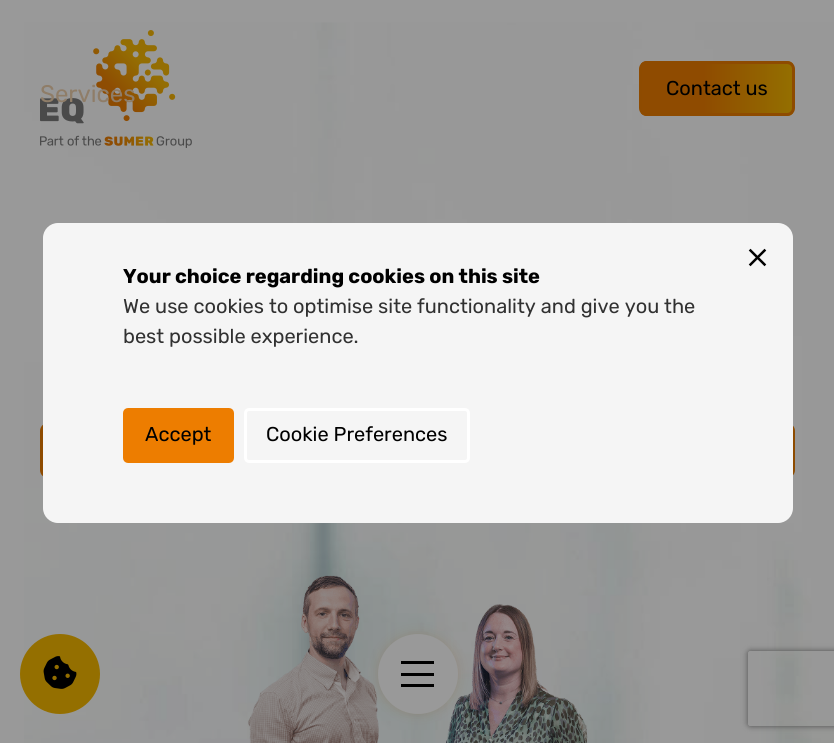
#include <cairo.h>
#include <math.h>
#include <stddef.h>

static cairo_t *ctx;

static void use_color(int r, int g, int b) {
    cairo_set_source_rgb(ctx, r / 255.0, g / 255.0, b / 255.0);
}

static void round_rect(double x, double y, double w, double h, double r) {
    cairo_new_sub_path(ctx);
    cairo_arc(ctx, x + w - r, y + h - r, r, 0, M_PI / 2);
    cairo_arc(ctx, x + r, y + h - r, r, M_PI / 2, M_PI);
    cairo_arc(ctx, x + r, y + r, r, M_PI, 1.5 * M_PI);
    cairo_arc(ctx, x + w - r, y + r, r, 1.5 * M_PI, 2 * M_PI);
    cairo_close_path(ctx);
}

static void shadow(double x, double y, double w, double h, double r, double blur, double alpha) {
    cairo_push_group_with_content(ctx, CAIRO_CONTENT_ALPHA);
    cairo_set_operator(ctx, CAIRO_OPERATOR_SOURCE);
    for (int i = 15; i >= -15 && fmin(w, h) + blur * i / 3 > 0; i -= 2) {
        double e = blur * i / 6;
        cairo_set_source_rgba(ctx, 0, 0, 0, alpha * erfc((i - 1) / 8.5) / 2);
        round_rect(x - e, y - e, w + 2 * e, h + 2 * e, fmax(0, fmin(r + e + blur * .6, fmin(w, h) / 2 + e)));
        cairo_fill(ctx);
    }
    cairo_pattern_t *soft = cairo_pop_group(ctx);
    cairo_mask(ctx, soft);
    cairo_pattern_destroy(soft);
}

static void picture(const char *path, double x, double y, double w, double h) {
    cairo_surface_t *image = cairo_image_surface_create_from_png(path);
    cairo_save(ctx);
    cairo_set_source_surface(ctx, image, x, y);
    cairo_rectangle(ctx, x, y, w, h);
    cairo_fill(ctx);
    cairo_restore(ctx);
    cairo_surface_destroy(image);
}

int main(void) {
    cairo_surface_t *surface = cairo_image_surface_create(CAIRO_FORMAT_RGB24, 834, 743);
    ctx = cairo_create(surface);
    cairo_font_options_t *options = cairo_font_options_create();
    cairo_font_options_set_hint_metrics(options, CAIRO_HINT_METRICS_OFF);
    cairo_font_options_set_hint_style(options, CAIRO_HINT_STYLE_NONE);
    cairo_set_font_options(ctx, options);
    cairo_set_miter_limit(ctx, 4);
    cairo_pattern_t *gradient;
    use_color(153, 153, 153);
    cairo_paint(ctx);
    picture("img1.png", 24, 22, 810, 721);
    round_rect(41.5, 424.5, 752, 52, 6.5);
    use_color(142, 75, 0);
    cairo_set_line_width(ctx, 3);
    cairo_stroke(ctx);
    picture("img2.png", 248, 575, 131, 168);
    picture("img3.png", 446, 604, 142, 139);
    picture("img4.png", 40, 30, 152, 118);
    cairo_select_font_face(ctx, "Rubik", CAIRO_FONT_SLANT_NORMAL, CAIRO_FONT_WEIGHT_NORMAL);
    cairo_set_font_size(ctx, 24);
    use_color(143, 125, 104);
    cairo_move_to(ctx, 40, 102);
    cairo_show_text(ctx, "Services");
    cairo_save(ctx);
    round_rect(639, 61, 156, 55, 8);
    cairo_clip(ctx);
    gradient = cairo_pattern_create_linear(641, 89, 793, 89);
    cairo_pattern_add_color_stop_rgba(gradient, 0.41, 0.561, 0.294, 0, 1);
    cairo_pattern_add_color_stop_rgba(gradient, 1, 0.58, 0.435, 0, 1);
    cairo_set_source(ctx, gradient);
    cairo_pattern_destroy(gradient);
    cairo_rectangle(ctx, 641, 61, 152, 55);
    cairo_fill(ctx);
    cairo_restore(ctx);
    round_rect(640.5, 62.5, 153, 52, 6.5);
    use_color(142, 75, 0);
    cairo_stroke(ctx);
    cairo_set_font_size(ctx, 20);
    use_color(0, 0, 0);
    cairo_move_to(ctx, 666, 95);
    cairo_show_text(ctx, "Contact us");
    use_color(142, 75, 0);
    shadow(378, 634, 80, 80, 40, 6, 0.15);
    use_color(153, 153, 153);
    cairo_arc(ctx, 418, 674, 40, 0, 2 * M_PI);
    cairo_fill(ctx);
    use_color(0, 0, 0);
    cairo_rectangle(ctx, 401, 661, 33, 3);
    cairo_fill(ctx);
    cairo_rectangle(ctx, 401, 673, 33, 3);
    cairo_fill(ctx);
    cairo_rectangle(ctx, 401, 684, 33, 3);
    cairo_fill(ctx);
    use_color(245, 245, 245);
    round_rect(43, 223, 750, 300, 15);
    cairo_fill(ctx);
    picture("img5.png", 748, 248, 19, 19);
    cairo_select_font_face(ctx, "Rubik", CAIRO_FONT_SLANT_NORMAL, CAIRO_FONT_WEIGHT_BOLD);
    use_color(0, 0, 0);
    cairo_move_to(ctx, 123, 283);
    cairo_show_text(ctx, "Your choice regarding cookies on this site");
    cairo_select_font_face(ctx, "Rubik", CAIRO_FONT_SLANT_NORMAL, CAIRO_FONT_WEIGHT_NORMAL);
    use_color(49, 49, 49);
    cairo_move_to(ctx, 123, 313);
    cairo_show_text(ctx, "We use cookies to optimise site functionality and give you the");
    cairo_move_to(ctx, 123, 343);
    cairo_show_text(ctx, "best possible experience.");
    use_color(237, 125, 0);
    round_rect(124.5, 409.5, 108, 52, 3.5);
    cairo_fill_preserve(ctx);
    cairo_stroke(ctx);
    use_color(0, 0, 0);
    cairo_move_to(ctx, 145, 441);
    cairo_show_text(ctx, "Accept");
    round_rect(245.5, 409.5, 223, 52, 3.5);
    use_color(255, 255, 255);
    cairo_stroke(ctx);
    use_color(0, 0, 0);
    cairo_move_to(ctx, 266, 441);
    cairo_show_text(ctx, "Cookie Preferences");
    use_color(148, 111, 0);
    cairo_new_path(ctx);
    cairo_arc(ctx, 60, 674, 40, 0, 2 * M_PI);
    cairo_fill(ctx);
    picture("img6.png", 43, 656, 34, 33);
    cairo_save(ctx);
    cairo_set_fill_rule(ctx, CAIRO_FILL_RULE_EVEN_ODD);
    cairo_new_path(ctx);
    cairo_move_to(ctx, 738, 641);
    cairo_line_to(ctx, 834, 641);
    cairo_line_to(ctx, 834, 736);
    cairo_line_to(ctx, 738, 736);
    cairo_close_path(ctx);
    cairo_move_to(ctx, 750.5, 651);
    cairo_line_to(ctx, 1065.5, 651);
    cairo_curve_to(ctx, 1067, 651, 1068, 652, 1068, 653.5);
    cairo_line_to(ctx, 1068, 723.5);
    cairo_curve_to(ctx, 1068, 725, 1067, 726, 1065.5, 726);
    cairo_line_to(ctx, 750.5, 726);
    cairo_curve_to(ctx, 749, 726, 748, 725, 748, 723.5);
    cairo_line_to(ctx, 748, 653.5);
    cairo_curve_to(ctx, 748, 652, 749, 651, 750.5, 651);
    cairo_close_path(ctx);
    cairo_clip(ctx);
    use_color(77, 77, 77);
    shadow(748, 651, 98, 75, 2.5, 3, 1);
    cairo_restore(ctx);
    cairo_surface_write_to_png(surface, "result.png");
    cairo_font_options_destroy(options);
    cairo_destroy(ctx);
    cairo_surface_destroy(surface);
    return 0;
}
